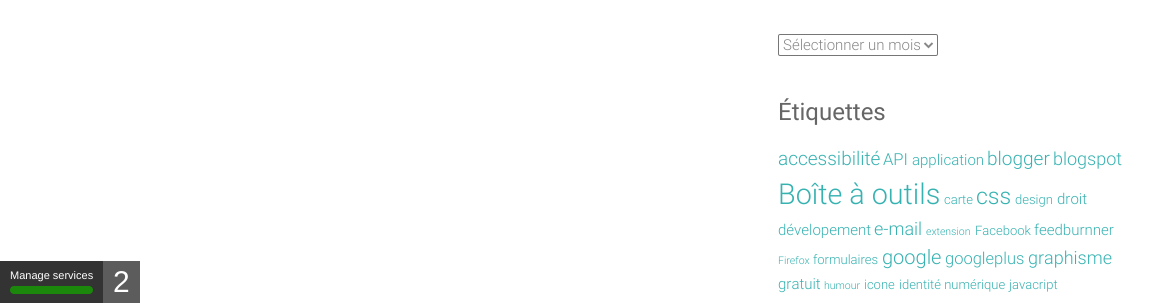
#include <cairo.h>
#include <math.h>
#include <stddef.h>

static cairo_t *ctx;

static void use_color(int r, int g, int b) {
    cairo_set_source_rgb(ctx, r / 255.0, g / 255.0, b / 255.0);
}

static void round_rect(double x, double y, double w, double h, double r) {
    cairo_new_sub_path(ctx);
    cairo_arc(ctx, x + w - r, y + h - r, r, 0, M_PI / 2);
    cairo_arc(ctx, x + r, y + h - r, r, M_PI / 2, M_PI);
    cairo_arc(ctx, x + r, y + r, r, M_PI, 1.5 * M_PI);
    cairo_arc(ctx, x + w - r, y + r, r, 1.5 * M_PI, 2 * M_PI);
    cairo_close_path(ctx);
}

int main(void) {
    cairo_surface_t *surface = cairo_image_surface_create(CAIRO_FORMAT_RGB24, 1159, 303);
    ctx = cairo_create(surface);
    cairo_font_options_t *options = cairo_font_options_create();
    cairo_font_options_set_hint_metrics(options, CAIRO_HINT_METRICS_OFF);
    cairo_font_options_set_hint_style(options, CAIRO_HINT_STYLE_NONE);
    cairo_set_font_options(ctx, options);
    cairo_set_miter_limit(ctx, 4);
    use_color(255, 255, 255);
    cairo_paint(ctx);
    use_color(51, 51, 51);
    cairo_rectangle(ctx, 0, 261, 103, 42);
    cairo_fill(ctx);
    cairo_select_font_face(ctx, "Liberation Sans", CAIRO_FONT_SLANT_NORMAL, CAIRO_FONT_WEIGHT_NORMAL);
    cairo_set_font_size(ctx, 11);
    use_color(255, 255, 255);
    cairo_move_to(ctx, 10, 279);
    cairo_show_text(ctx, "Manage services");
    use_color(27, 135, 11);
    round_rect(10, 286, 83, 8, 4);
    cairo_fill(ctx);
    use_color(92, 92, 92);
    cairo_rectangle(ctx, 103, 261, 37, 42);
    cairo_fill(ctx);
    cairo_set_font_size(ctx, 30);
    use_color(255, 255, 255);
    cairo_move_to(ctx, 113, 292);
    cairo_show_text(ctx, "2");
    round_rect(778.5, 34.5, 159, 21, 1.5);
    use_color(118, 118, 118);
    cairo_set_line_width(ctx, 1);
    cairo_stroke(ctx);
    cairo_new_path(ctx);
    cairo_move_to(ctx, 924.5, 43);
    cairo_line_to(ctx, 928.5, 47);
    cairo_line_to(ctx, 932.5, 43);
    use_color(136, 136, 136);
    cairo_set_line_width(ctx, 2);
    cairo_stroke(ctx);
    cairo_select_font_face(ctx, "Roboto Light", CAIRO_FONT_SLANT_NORMAL, CAIRO_FONT_WEIGHT_NORMAL);
    cairo_set_font_size(ctx, 15);
    cairo_move_to(ctx, 783, 50);
    cairo_show_text(ctx, "Sélectionner un mois");
    cairo_select_font_face(ctx, "Roboto", CAIRO_FONT_SLANT_NORMAL, CAIRO_FONT_WEIGHT_NORMAL);
    cairo_set_font_size(ctx, 24);
    use_color(102, 102, 102);
    cairo_move_to(ctx, 778, 120);
    cairo_show_text(ctx, "Étiquettes");
    cairo_select_font_face(ctx, "Roboto Light", CAIRO_FONT_SLANT_NORMAL, CAIRO_FONT_WEIGHT_NORMAL);
    cairo_set_font_size(ctx, 19);
    use_color(54, 178, 177);
    cairo_move_to(ctx, 778, 165);
    cairo_show_text(ctx, "accessibilité");
    cairo_set_font_size(ctx, 16.5);
    cairo_move_to(ctx, 883, 165);
    cairo_show_text(ctx, "API");
    cairo_set_font_size(ctx, 15);
    cairo_move_to(ctx, 912, 165);
    cairo_show_text(ctx, "application");
    cairo_set_font_size(ctx, 19);
    cairo_move_to(ctx, 987, 165);
    cairo_show_text(ctx, "blogger");
    cairo_set_font_size(ctx, 18);
    cairo_move_to(ctx, 1053, 165);
    cairo_show_text(ctx, "blogspot");
    cairo_set_font_size(ctx, 28.75);
    cairo_move_to(ctx, 778, 204);
    cairo_show_text(ctx, "Boîte à outils");
    cairo_set_font_size(ctx, 13);
    cairo_move_to(ctx, 944, 204);
    cairo_show_text(ctx, "carte");
    cairo_set_font_size(ctx, 23);
    cairo_move_to(ctx, 976, 204);
    cairo_show_text(ctx, "css");
    cairo_set_font_size(ctx, 13);
    cairo_move_to(ctx, 1015, 204);
    cairo_show_text(ctx, "design");
    cairo_set_font_size(ctx, 15);
    cairo_move_to(ctx, 1057, 204);
    cairo_show_text(ctx, "droit");
    cairo_move_to(ctx, 778, 235);
    cairo_show_text(ctx, "dévelopement");
    cairo_set_font_size(ctx, 18);
    cairo_move_to(ctx, 874, 235);
    cairo_show_text(ctx, "e-mail");
    cairo_set_font_size(ctx, 10.5);
    cairo_move_to(ctx, 926, 235);
    cairo_show_text(ctx, "extension");
    cairo_set_font_size(ctx, 13);
    cairo_move_to(ctx, 975, 235);
    cairo_show_text(ctx, "Facebook");
    cairo_set_font_size(ctx, 15);
    cairo_move_to(ctx, 1034, 235);
    cairo_show_text(ctx, "feedburnner");
    cairo_set_font_size(ctx, 10.5);
    cairo_move_to(ctx, 778, 264);
    cairo_show_text(ctx, "Firefox");
    cairo_set_font_size(ctx, 13);
    cairo_move_to(ctx, 813, 264);
    cairo_show_text(ctx, "formulaires");
    cairo_set_font_size(ctx, 20);
    cairo_move_to(ctx, 882, 264);
    cairo_show_text(ctx, "google");
    cairo_set_font_size(ctx, 16.5);
    cairo_move_to(ctx, 945, 264);
    cairo_show_text(ctx, "googleplus");
    cairo_set_font_size(ctx, 18);
    cairo_move_to(ctx, 1028, 264);
    cairo_show_text(ctx, "graphisme");
    cairo_set_font_size(ctx, 15);
    cairo_move_to(ctx, 778, 289);
    cairo_show_text(ctx, "gratuit");
    cairo_set_font_size(ctx, 10.5);
    cairo_move_to(ctx, 824, 289);
    cairo_show_text(ctx, "humour");
    cairo_set_font_size(ctx, 13);
    cairo_move_to(ctx, 864, 289);
    cairo_show_text(ctx, "icone");
    cairo_move_to(ctx, 899, 289);
    cairo_show_text(ctx, "identité numérique");
    cairo_move_to(ctx, 1009, 289);
    cairo_show_text(ctx, "javacript");
    cairo_surface_write_to_png(surface, "result.png");
    cairo_font_options_destroy(options);
    cairo_destroy(ctx);
    cairo_surface_destroy(surface);
    return 0;
}
